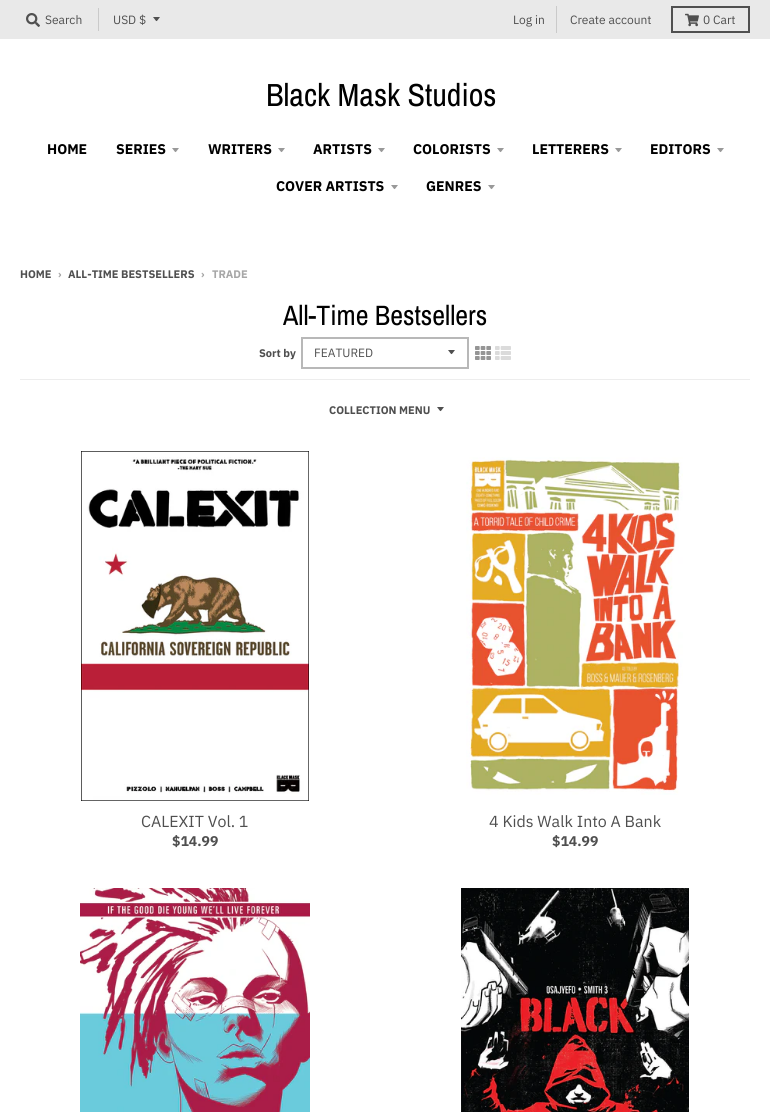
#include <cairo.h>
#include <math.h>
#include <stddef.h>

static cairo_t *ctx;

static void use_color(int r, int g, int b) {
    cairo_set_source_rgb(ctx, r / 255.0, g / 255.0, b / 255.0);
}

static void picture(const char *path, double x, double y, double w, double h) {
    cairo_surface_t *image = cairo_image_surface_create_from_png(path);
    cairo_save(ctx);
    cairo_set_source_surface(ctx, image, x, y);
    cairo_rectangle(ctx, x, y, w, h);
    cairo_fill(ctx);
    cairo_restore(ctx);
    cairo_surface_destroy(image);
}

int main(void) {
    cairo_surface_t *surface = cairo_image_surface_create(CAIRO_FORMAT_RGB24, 770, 1112);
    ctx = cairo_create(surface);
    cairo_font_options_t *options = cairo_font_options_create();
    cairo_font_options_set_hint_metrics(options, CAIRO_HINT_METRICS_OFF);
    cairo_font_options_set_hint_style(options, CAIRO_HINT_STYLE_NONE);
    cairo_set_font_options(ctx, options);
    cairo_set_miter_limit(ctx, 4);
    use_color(255, 255, 255);
    cairo_paint(ctx);
    use_color(233, 233, 233);
    cairo_rectangle(ctx, 0, 0, 770, 39);
    cairo_fill(ctx);
    picture("img1.png", 26, 13, 14, 14);
    cairo_select_font_face(ctx, "IBM Plex Sans", CAIRO_FONT_SLANT_NORMAL, CAIRO_FONT_WEIGHT_NORMAL);
    cairo_set_font_size(ctx, 12);
    use_color(79, 79, 79);
    cairo_move_to(ctx, 45, 24);
    cairo_show_text(ctx, "Search");
    use_color(202, 202, 202);
    cairo_rectangle(ctx, 98, 8, 1, 23);
    cairo_fill(ctx);
    use_color(80, 80, 80);
    cairo_new_path(ctx);
    cairo_move_to(ctx, 153, 17);
    cairo_curve_to(ctx, 157.5, 22.5, 155.5, 22.5, 160, 17);
    cairo_close_path(ctx);
    cairo_fill(ctx);
    use_color(79, 79, 79);
    cairo_move_to(ctx, 113, 24);
    cairo_show_text(ctx, "USD $");
    use_color(202, 202, 202);
    cairo_rectangle(ctx, 556, 6, 1, 27);
    cairo_fill(ctx);
    use_color(79, 79, 79);
    cairo_move_to(ctx, 513, 24);
    cairo_show_text(ctx, "Log in");
    cairo_move_to(ctx, 570, 24);
    cairo_show_text(ctx, "Create account");
    cairo_rectangle(ctx, 672, 7, 77, 25);
    use_color(80, 80, 80);
    cairo_stroke(ctx);
    picture("img2.png", 685, 13, 14, 14);
    use_color(79, 79, 79);
    cairo_move_to(ctx, 703, 24);
    cairo_show_text(ctx, "0 Cart");
    cairo_select_font_face(ctx, "Archivo Narrow", CAIRO_FONT_SLANT_NORMAL, CAIRO_FONT_WEIGHT_NORMAL);
    cairo_set_font_size(ctx, 32);
    use_color(0, 0, 0);
    cairo_move_to(ctx, 266, 106);
    cairo_show_text(ctx, "Black Mask Studios");
    cairo_select_font_face(ctx, "IBM Plex Sans", CAIRO_FONT_SLANT_NORMAL, CAIRO_FONT_WEIGHT_BOLD);
    cairo_set_font_size(ctx, 14);
    cairo_move_to(ctx, 47, 154);
    cairo_show_text(ctx, "HOME");
    cairo_move_to(ctx, 116, 154);
    cairo_show_text(ctx, "SERIES");
    use_color(153, 153, 153);
    cairo_new_path(ctx);
    cairo_move_to(ctx, 172, 148);
    cairo_curve_to(ctx, 176.5, 153.5, 174.5, 153.5, 179, 148);
    cairo_close_path(ctx);
    cairo_fill(ctx);
    use_color(0, 0, 0);
    cairo_move_to(ctx, 208, 154);
    cairo_show_text(ctx, "WRITERS");
    use_color(153, 153, 153);
    cairo_new_path(ctx);
    cairo_move_to(ctx, 278, 148);
    cairo_curve_to(ctx, 282.5, 153.5, 280.5, 153.5, 285, 148);
    cairo_close_path(ctx);
    cairo_fill(ctx);
    use_color(0, 0, 0);
    cairo_move_to(ctx, 313, 154);
    cairo_show_text(ctx, "ARTISTS");
    use_color(153, 153, 153);
    cairo_new_path(ctx);
    cairo_move_to(ctx, 378, 148);
    cairo_curve_to(ctx, 382.5, 153.5, 380.5, 153.5, 385, 148);
    cairo_close_path(ctx);
    cairo_fill(ctx);
    use_color(0, 0, 0);
    cairo_move_to(ctx, 413, 154);
    cairo_show_text(ctx, "COLORISTS");
    use_color(153, 153, 153);
    cairo_new_path(ctx);
    cairo_move_to(ctx, 497, 148);
    cairo_curve_to(ctx, 501.5, 153.5, 499.5, 153.5, 504, 148);
    cairo_close_path(ctx);
    cairo_fill(ctx);
    use_color(0, 0, 0);
    cairo_move_to(ctx, 532, 154);
    cairo_show_text(ctx, "LETTERERS");
    use_color(153, 153, 153);
    cairo_new_path(ctx);
    cairo_move_to(ctx, 615, 148);
    cairo_curve_to(ctx, 619.5, 153.5, 617.5, 153.5, 622, 148);
    cairo_close_path(ctx);
    cairo_fill(ctx);
    use_color(0, 0, 0);
    cairo_move_to(ctx, 650, 154);
    cairo_show_text(ctx, "EDITORS");
    use_color(153, 153, 153);
    cairo_new_path(ctx);
    cairo_move_to(ctx, 717, 148);
    cairo_curve_to(ctx, 721.5, 153.5, 719.5, 153.5, 724, 148);
    cairo_close_path(ctx);
    cairo_fill(ctx);
    use_color(0, 0, 0);
    cairo_move_to(ctx, 276, 191);
    cairo_show_text(ctx, "COVER ARTISTS");
    use_color(153, 153, 153);
    cairo_new_path(ctx);
    cairo_move_to(ctx, 391, 185);
    cairo_curve_to(ctx, 395.5, 190.5, 393.5, 190.5, 398, 185);
    cairo_close_path(ctx);
    cairo_fill(ctx);
    use_color(0, 0, 0);
    cairo_move_to(ctx, 426, 191);
    cairo_show_text(ctx, "GENRES");
    use_color(153, 153, 153);
    cairo_new_path(ctx);
    cairo_move_to(ctx, 488, 185);
    cairo_curve_to(ctx, 492.5, 190.5, 490.5, 190.5, 495, 185);
    cairo_close_path(ctx);
    cairo_fill(ctx);
    cairo_set_font_size(ctx, 11);
    use_color(79, 79, 79);
    cairo_move_to(ctx, 20, 278);
    cairo_show_text(ctx, "HOME");
    use_color(167, 167, 167);
    cairo_move_to(ctx, 58, 278);
    cairo_show_text(ctx, "›");
    use_color(79, 79, 79);
    cairo_move_to(ctx, 68, 278);
    cairo_show_text(ctx, "ALL-TIME BESTSELLERS");
    use_color(167, 167, 167);
    cairo_move_to(ctx, 201, 278);
    cairo_show_text(ctx, "›");
    cairo_move_to(ctx, 212, 278);
    cairo_show_text(ctx, "TRADE");
    use_color(237, 237, 237);
    cairo_rectangle(ctx, 20, 379, 730, 1);
    cairo_fill(ctx);
    cairo_select_font_face(ctx, "Archivo Narrow", CAIRO_FONT_SLANT_NORMAL, CAIRO_FONT_WEIGHT_NORMAL);
    cairo_set_font_size(ctx, 28);
    use_color(0, 0, 0);
    cairo_move_to(ctx, 283, 325);
    cairo_show_text(ctx, "All-Time Bestsellers");
    cairo_select_font_face(ctx, "IBM Plex Sans", CAIRO_FONT_SLANT_NORMAL, CAIRO_FONT_WEIGHT_BOLD);
    cairo_set_font_size(ctx, 11);
    use_color(79, 79, 79);
    cairo_move_to(ctx, 259, 357);
    cairo_show_text(ctx, "Sort by");
    cairo_new_path(ctx);
    cairo_move_to(ctx, 448, 350);
    cairo_curve_to(ctx, 452.5, 355.5, 450.5, 355.5, 455, 350);
    cairo_close_path(ctx);
    cairo_fill(ctx);
    cairo_rectangle(ctx, 302, 338, 166, 30);
    use_color(184, 184, 184);
    cairo_stroke(ctx);
    cairo_select_font_face(ctx, "IBM Plex Sans", CAIRO_FONT_SLANT_NORMAL, CAIRO_FONT_WEIGHT_NORMAL);
    cairo_set_font_size(ctx, 12);
    use_color(79, 79, 79);
    cairo_move_to(ctx, 314, 357);
    cairo_show_text(ctx, "FEATURED");
    picture("img3.png", 475, 346, 16, 14);
    picture("img4.png", 495, 346, 16, 14);
    cairo_select_font_face(ctx, "IBM Plex Sans", CAIRO_FONT_SLANT_NORMAL, CAIRO_FONT_WEIGHT_BOLD);
    cairo_set_font_size(ctx, 11);
    cairo_move_to(ctx, 329, 414);
    cairo_show_text(ctx, "COLLECTION MENU");
    cairo_new_path(ctx);
    cairo_move_to(ctx, 437, 407);
    cairo_curve_to(ctx, 441.5, 412.5, 439.5, 412.5, 444, 407);
    cairo_close_path(ctx);
    cairo_fill(ctx);
    picture("img5.png", 81, 451, 228, 350);
    cairo_select_font_face(ctx, "IBM Plex Sans", CAIRO_FONT_SLANT_NORMAL, CAIRO_FONT_WEIGHT_NORMAL);
    cairo_set_font_size(ctx, 16);
    cairo_move_to(ctx, 141, 827);
    cairo_show_text(ctx, "CALEXIT Vol. 1");
    cairo_select_font_face(ctx, "IBM Plex Sans", CAIRO_FONT_SLANT_NORMAL, CAIRO_FONT_WEIGHT_BOLD);
    cairo_set_font_size(ctx, 14);
    cairo_move_to(ctx, 172, 846);
    cairo_show_text(ctx, "$14.99");
    picture("img6.png", 466, 457, 217, 338);
    cairo_select_font_face(ctx, "IBM Plex Sans", CAIRO_FONT_SLANT_NORMAL, CAIRO_FONT_WEIGHT_NORMAL);
    cairo_set_font_size(ctx, 16);
    cairo_move_to(ctx, 489, 827);
    cairo_show_text(ctx, "4 Kids Walk Into A Bank");
    cairo_select_font_face(ctx, "IBM Plex Sans", CAIRO_FONT_SLANT_NORMAL, CAIRO_FONT_WEIGHT_BOLD);
    cairo_set_font_size(ctx, 14);
    cairo_move_to(ctx, 552, 846);
    cairo_show_text(ctx, "$14.99");
    picture("img7.png", 80, 888, 230, 224);
    picture("img8.png", 461, 888, 228, 224);
    cairo_surface_write_to_png(surface, "result.png");
    cairo_font_options_destroy(options);
    cairo_destroy(ctx);
    cairo_surface_destroy(surface);
    return 0;
}
